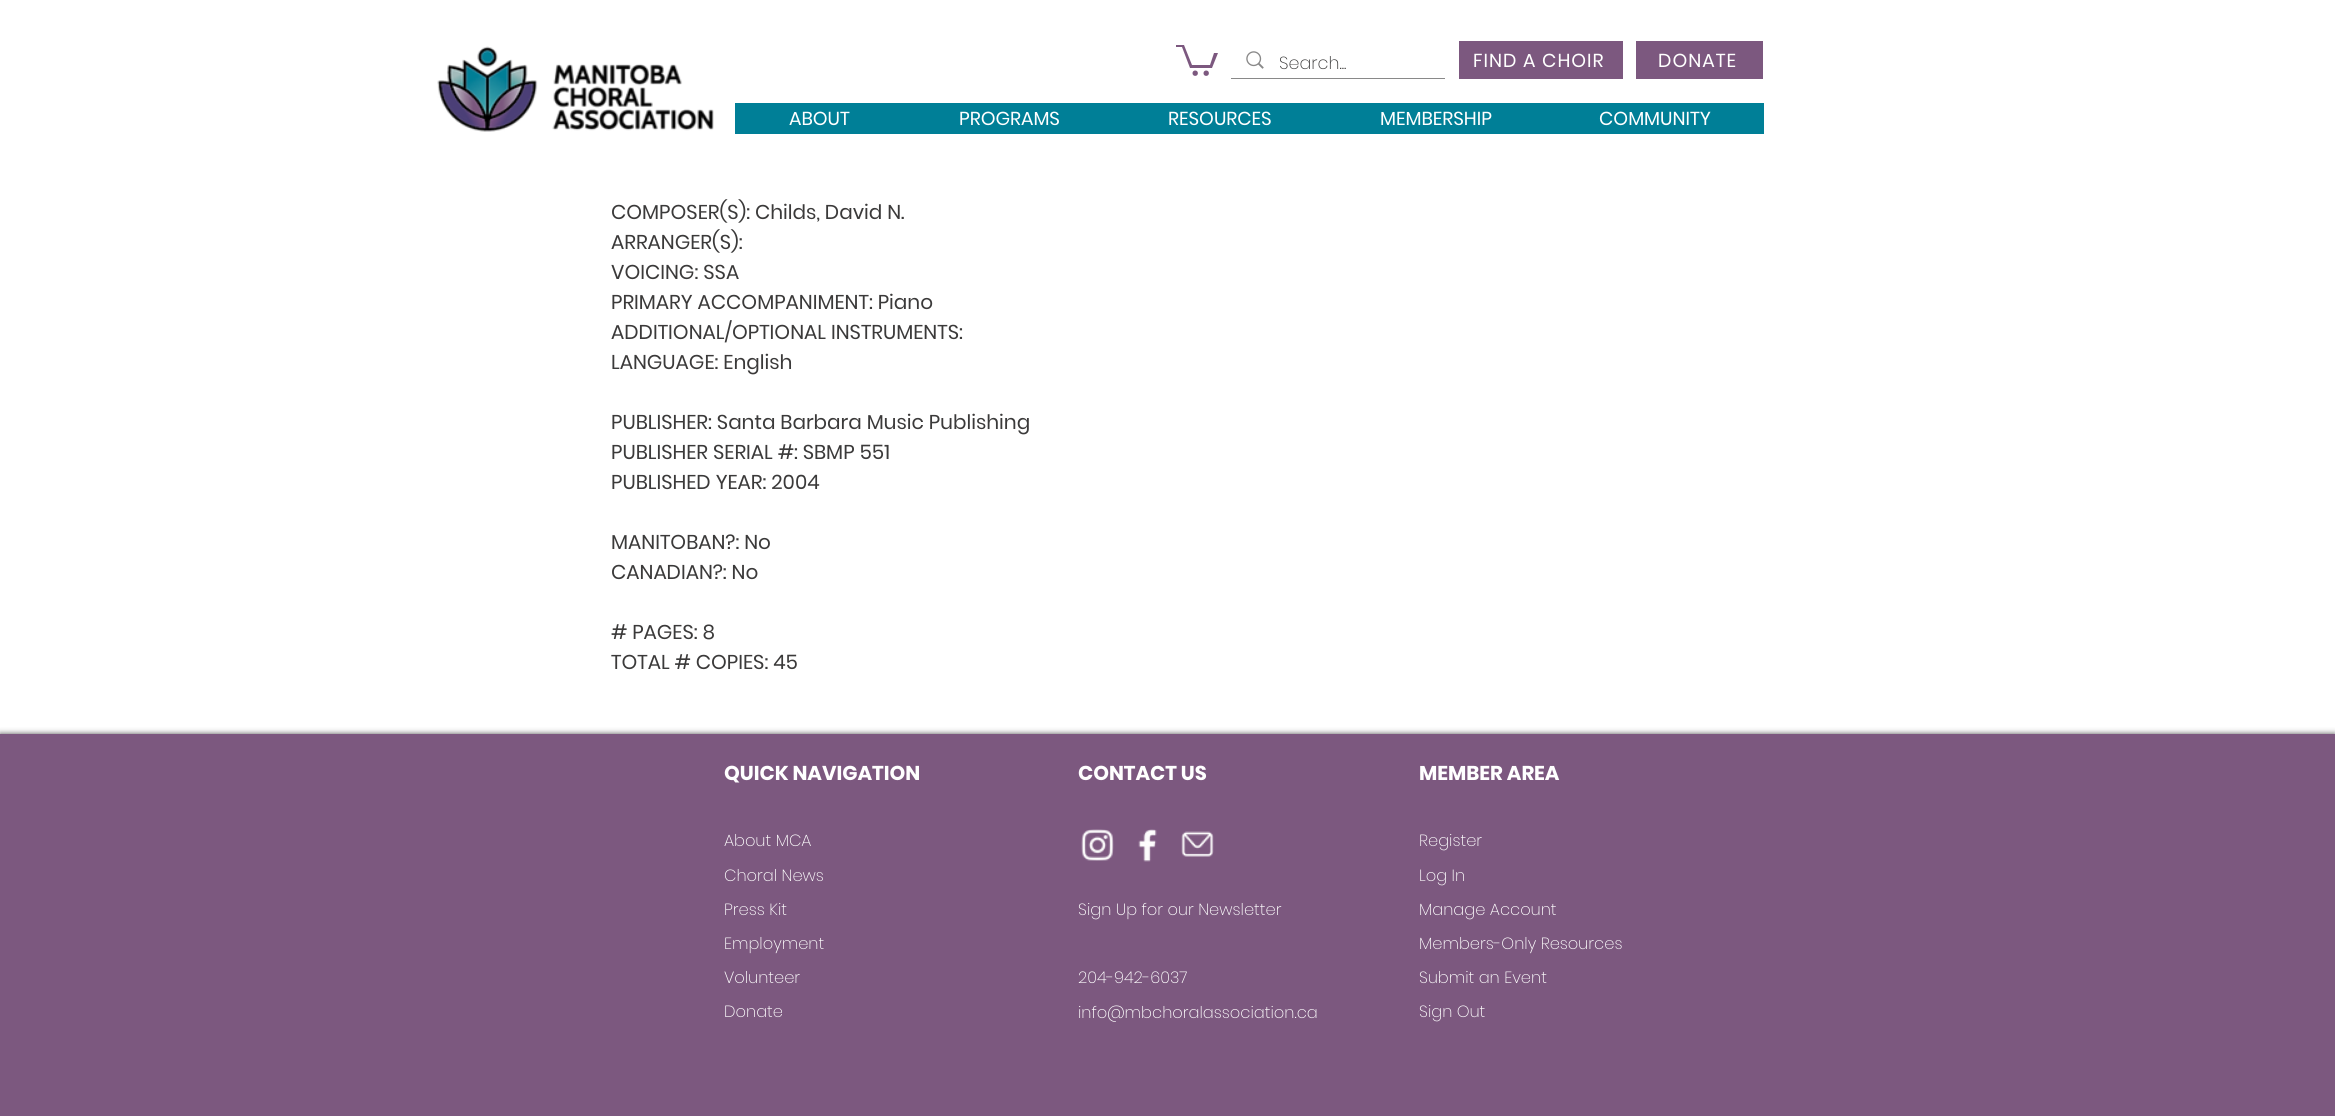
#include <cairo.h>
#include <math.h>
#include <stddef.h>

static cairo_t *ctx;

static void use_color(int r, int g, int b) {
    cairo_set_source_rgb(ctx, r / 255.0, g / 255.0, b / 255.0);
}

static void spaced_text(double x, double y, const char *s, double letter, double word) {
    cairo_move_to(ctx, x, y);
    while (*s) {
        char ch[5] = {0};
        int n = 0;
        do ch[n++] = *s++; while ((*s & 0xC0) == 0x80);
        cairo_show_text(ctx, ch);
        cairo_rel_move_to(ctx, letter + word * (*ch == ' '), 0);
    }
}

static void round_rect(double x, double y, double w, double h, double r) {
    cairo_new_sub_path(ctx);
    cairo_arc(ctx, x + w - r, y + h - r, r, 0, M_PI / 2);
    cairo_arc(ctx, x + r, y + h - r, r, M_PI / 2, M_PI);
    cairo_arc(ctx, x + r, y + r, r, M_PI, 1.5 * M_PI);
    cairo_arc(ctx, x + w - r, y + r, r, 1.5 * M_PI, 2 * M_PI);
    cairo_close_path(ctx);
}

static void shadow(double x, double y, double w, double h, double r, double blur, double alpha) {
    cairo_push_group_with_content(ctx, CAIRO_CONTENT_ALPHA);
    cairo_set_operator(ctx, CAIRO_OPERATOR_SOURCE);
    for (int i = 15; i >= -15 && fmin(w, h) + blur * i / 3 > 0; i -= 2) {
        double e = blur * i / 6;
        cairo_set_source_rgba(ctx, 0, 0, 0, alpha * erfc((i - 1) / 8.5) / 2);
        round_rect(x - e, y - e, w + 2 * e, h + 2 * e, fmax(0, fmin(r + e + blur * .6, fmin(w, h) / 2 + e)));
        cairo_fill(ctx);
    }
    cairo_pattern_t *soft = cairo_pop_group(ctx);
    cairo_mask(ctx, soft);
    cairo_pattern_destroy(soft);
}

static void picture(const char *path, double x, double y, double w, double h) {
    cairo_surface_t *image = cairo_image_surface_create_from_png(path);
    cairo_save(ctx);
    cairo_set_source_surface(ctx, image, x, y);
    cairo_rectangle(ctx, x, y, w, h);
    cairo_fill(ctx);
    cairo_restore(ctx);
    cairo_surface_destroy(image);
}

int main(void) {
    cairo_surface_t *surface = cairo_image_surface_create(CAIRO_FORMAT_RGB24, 2335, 1116);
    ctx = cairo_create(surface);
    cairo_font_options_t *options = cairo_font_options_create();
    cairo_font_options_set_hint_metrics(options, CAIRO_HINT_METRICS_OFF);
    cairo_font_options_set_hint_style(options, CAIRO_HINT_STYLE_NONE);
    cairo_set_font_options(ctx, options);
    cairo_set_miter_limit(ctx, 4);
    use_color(255, 255, 255);
    cairo_paint(ctx);
    picture("img1.png", 437, 46, 277, 86);
    use_color(124, 88, 127);
    cairo_new_path(ctx);
    cairo_move_to(ctx, 1218, 53);
    cairo_line_to(ctx, 1212, 68);
    cairo_line_to(ctx, 1190, 68);
    cairo_line_to(ctx, 1182, 47);
    cairo_line_to(ctx, 1176, 47);
    cairo_line_to(ctx, 1176, 45);
    cairo_line_to(ctx, 1184, 45);
    cairo_line_to(ctx, 1192, 65);
    cairo_line_to(ctx, 1210, 65);
    cairo_line_to(ctx, 1214, 53);
    cairo_fill(ctx);
    cairo_arc(ctx, 1206.2, 73.2, 2.7, 0, 2 * M_PI);
    cairo_fill(ctx);
    cairo_arc(ctx, 1195.2, 73.2, 2.7, 0, 2 * M_PI);
    cairo_fill(ctx);
    use_color(137, 137, 137);
    cairo_rectangle(ctx, 1231, 78, 214, 1);
    cairo_fill(ctx);
    picture("img2.png", 1246, 51, 18, 18);
    cairo_select_font_face(ctx, "Poppins ExtraLight", CAIRO_FONT_SLANT_NORMAL, CAIRO_FONT_WEIGHT_NORMAL);
    cairo_set_font_size(ctx, 17.5);
    use_color(59, 58, 58);
    cairo_move_to(ctx, 1279, 69);
    cairo_show_text(ctx, "Search...");
    use_color(124, 88, 127);
    cairo_rectangle(ctx, 1459, 41, 164, 38);
    cairo_fill(ctx);
    cairo_select_font_face(ctx, "Poppins", CAIRO_FONT_SLANT_NORMAL, CAIRO_FONT_WEIGHT_NORMAL);
    cairo_set_font_size(ctx, 18.75);
    use_color(255, 255, 255);
    spaced_text(1473, 67, "FIND A CHOIR", 1, 0);
    use_color(124, 88, 127);
    cairo_rectangle(ctx, 1636, 41, 127, 38);
    cairo_fill(ctx);
    use_color(255, 255, 255);
    spaced_text(1658, 67, "DONATE", 1, 0);
    use_color(0, 127, 151);
    cairo_rectangle(ctx, 735, 103, 1029, 31);
    cairo_fill(ctx);
    use_color(255, 255, 255);
    cairo_move_to(ctx, 789, 125);
    cairo_show_text(ctx, "ABOUT");
    cairo_move_to(ctx, 959, 125);
    cairo_show_text(ctx, "PROGRAMS");
    cairo_move_to(ctx, 1168, 125);
    cairo_show_text(ctx, "RESOURCES");
    cairo_move_to(ctx, 1380, 125);
    cairo_show_text(ctx, "MEMBERSHIP");
    cairo_move_to(ctx, 1599, 125);
    cairo_show_text(ctx, "COMMUNITY");
    cairo_set_font_size(ctx, 20);
    use_color(59, 58, 58);
    cairo_move_to(ctx, 611, 219);
    cairo_show_text(ctx, "COMPOSER(S): Childs, David N.");
    cairo_move_to(ctx, 611, 249);
    cairo_show_text(ctx, "ARRANGER(S):");
    cairo_move_to(ctx, 611, 279);
    cairo_show_text(ctx, "VOICING: SSA");
    cairo_move_to(ctx, 611, 309);
    cairo_show_text(ctx, "PRIMARY ACCOMPANIMENT: Piano");
    cairo_move_to(ctx, 611, 339);
    cairo_show_text(ctx, "ADDITIONAL/OPTIONAL INSTRUMENTS:");
    cairo_move_to(ctx, 611, 369);
    cairo_show_text(ctx, "LANGUAGE: English");
    cairo_move_to(ctx, 611, 429);
    cairo_show_text(ctx, "PUBLISHER: Santa Barbara Music Publishing");
    cairo_move_to(ctx, 611, 459);
    cairo_show_text(ctx, "PUBLISHER SERIAL #: SBMP 551");
    cairo_move_to(ctx, 611, 489);
    cairo_show_text(ctx, "PUBLISHED YEAR: 2004");
    cairo_move_to(ctx, 611, 549);
    cairo_show_text(ctx, "MANITOBAN?: No");
    cairo_move_to(ctx, 611, 579);
    cairo_show_text(ctx, "CANADIAN?: No");
    cairo_move_to(ctx, 611, 639);
    cairo_show_text(ctx, "# PAGES: 8");
    cairo_move_to(ctx, 611, 669);
    cairo_show_text(ctx, "TOTAL # COPIES: 45");
    use_color(0, 0, 0);
    shadow(0, 734, 2335, 382, 0, 3, 0.7);
    use_color(124, 88, 127);
    cairo_rectangle(ctx, 0, 734, 2335, 382);
    cairo_fill(ctx);
    cairo_select_font_face(ctx, "Poppins", CAIRO_FONT_SLANT_NORMAL, CAIRO_FONT_WEIGHT_BOLD);
    use_color(255, 255, 255);
    cairo_move_to(ctx, 724, 780);
    cairo_show_text(ctx, "QUICK NAVIGATION");
    cairo_move_to(ctx, 1078, 780);
    cairo_show_text(ctx, "CONTACT US");
    cairo_move_to(ctx, 1419, 780);
    cairo_show_text(ctx, "MEMBER AREA");
    cairo_select_font_face(ctx, "Poppins ExtraLight", CAIRO_FONT_SLANT_NORMAL, CAIRO_FONT_WEIGHT_NORMAL);
    cairo_set_font_size(ctx, 16.25);
    cairo_move_to(ctx, 724, 846);
    cairo_show_text(ctx, "About MCA");
    cairo_move_to(ctx, 724, 881);
    cairo_show_text(ctx, "Choral News");
    cairo_move_to(ctx, 724, 915);
    cairo_show_text(ctx, "Press Kit");
    cairo_move_to(ctx, 724, 949);
    cairo_show_text(ctx, "Employment");
    cairo_move_to(ctx, 724, 983);
    cairo_show_text(ctx, "Volunteer");
    cairo_move_to(ctx, 724, 1017);
    cairo_show_text(ctx, "Donate");
    picture("img3.png", 1081, 829, 33, 32);
    picture("img4.png", 1138, 829, 19, 33);
    picture("img5.png", 1181, 831, 33, 26);
    cairo_move_to(ctx, 1419, 846);
    cairo_show_text(ctx, "Register");
    cairo_move_to(ctx, 1419, 881);
    cairo_show_text(ctx, "Log In");
    cairo_move_to(ctx, 1419, 915);
    cairo_show_text(ctx, "Manage Account");
    cairo_move_to(ctx, 1419, 949);
    cairo_show_text(ctx, "Members-Only Resources");
    cairo_move_to(ctx, 1419, 983);
    cairo_show_text(ctx, "Submit an Event");
    cairo_move_to(ctx, 1419, 1017);
    cairo_show_text(ctx, "Sign Out");
    cairo_move_to(ctx, 1078, 915);
    cairo_show_text(ctx, "Sign Up for our Newsletter");
    cairo_move_to(ctx, 1078, 983);
    cairo_show_text(ctx, "204-942-6037");
    cairo_move_to(ctx, 1078, 1018);
    cairo_show_text(ctx, "info@mbchoralassociation.ca");
    cairo_surface_write_to_png(surface, "result.png");
    cairo_font_options_destroy(options);
    cairo_destroy(ctx);
    cairo_surface_destroy(surface);
    return 0;
}
